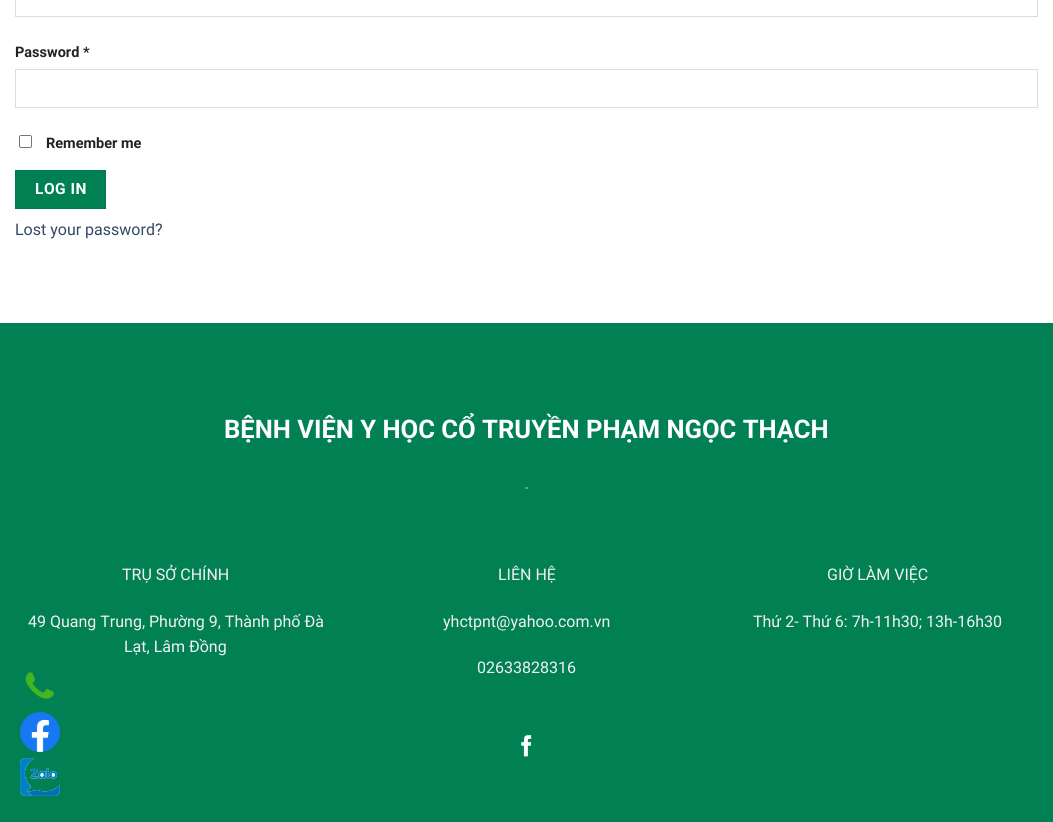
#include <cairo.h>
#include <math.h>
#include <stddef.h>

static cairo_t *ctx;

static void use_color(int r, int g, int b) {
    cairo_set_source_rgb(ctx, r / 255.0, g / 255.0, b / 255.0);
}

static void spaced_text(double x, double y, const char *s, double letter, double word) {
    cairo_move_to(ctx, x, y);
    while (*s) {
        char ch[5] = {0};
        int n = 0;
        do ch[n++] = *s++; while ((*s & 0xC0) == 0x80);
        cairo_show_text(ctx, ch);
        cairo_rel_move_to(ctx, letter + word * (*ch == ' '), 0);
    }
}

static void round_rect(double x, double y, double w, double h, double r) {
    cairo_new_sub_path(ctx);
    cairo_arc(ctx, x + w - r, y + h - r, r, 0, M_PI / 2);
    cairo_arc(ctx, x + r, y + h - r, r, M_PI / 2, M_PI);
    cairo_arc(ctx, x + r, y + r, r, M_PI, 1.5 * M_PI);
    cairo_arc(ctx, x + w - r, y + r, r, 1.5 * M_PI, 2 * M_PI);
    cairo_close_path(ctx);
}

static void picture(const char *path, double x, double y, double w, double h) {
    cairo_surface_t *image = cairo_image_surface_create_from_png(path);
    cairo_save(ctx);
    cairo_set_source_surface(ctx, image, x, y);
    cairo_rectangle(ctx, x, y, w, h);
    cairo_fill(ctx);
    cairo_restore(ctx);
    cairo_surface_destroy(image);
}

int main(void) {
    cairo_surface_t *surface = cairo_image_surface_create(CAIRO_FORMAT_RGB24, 1053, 822);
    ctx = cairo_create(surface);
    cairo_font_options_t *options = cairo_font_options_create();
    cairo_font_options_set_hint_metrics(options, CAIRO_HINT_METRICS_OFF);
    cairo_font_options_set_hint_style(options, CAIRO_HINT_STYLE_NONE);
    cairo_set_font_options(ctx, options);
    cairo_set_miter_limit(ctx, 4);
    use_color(255, 255, 255);
    cairo_paint(ctx);
    cairo_rectangle(ctx, 15.5, -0.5, 1022, 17);
    use_color(221, 221, 221);
    cairo_set_line_width(ctx, 1);
    cairo_stroke(ctx);
    cairo_select_font_face(ctx, "Roboto", CAIRO_FONT_SLANT_NORMAL, CAIRO_FONT_WEIGHT_BOLD);
    cairo_set_font_size(ctx, 14.5);
    use_color(34, 34, 34);
    cairo_move_to(ctx, 15, 57);
    cairo_show_text(ctx, "Password *");
    cairo_rectangle(ctx, 15.5, 69.5, 1022, 38);
    use_color(221, 221, 221);
    cairo_stroke(ctx);
    round_rect(19.5, 135.5, 12, 12, 1.5);
    use_color(118, 118, 118);
    cairo_stroke(ctx);
    use_color(34, 34, 34);
    cairo_move_to(ctx, 46, 148);
    cairo_show_text(ctx, "Remember me");
    use_color(0, 128, 83);
    cairo_rectangle(ctx, 15.5, 170.5, 90, 38);
    cairo_fill_preserve(ctx);
    use_color(0, 122, 79);
    cairo_stroke(ctx);
    cairo_set_font_size(ctx, 15.5);
    use_color(255, 255, 255);
    spaced_text(35, 194, "LOG IN", 0.5, 0);
    cairo_select_font_face(ctx, "Roboto", CAIRO_FONT_SLANT_NORMAL, CAIRO_FONT_WEIGHT_NORMAL);
    cairo_set_font_size(ctx, 16);
    use_color(51, 72, 98);
    cairo_move_to(ctx, 15, 235);
    cairo_show_text(ctx, "Lost your password?");
    use_color(0, 128, 83);
    cairo_rectangle(ctx, 0, 323, 1053, 499);
    cairo_fill(ctx);
    cairo_select_font_face(ctx, "Roboto", CAIRO_FONT_SLANT_NORMAL, CAIRO_FONT_WEIGHT_BOLD);
    cairo_set_font_size(ctx, 25.6);
    use_color(255, 255, 255);
    cairo_move_to(ctx, 224, 438);
    cairo_show_text(ctx, "BỆNH VIỆN Y HỌC CỔ TRUYỀN PHẠM NGỌC THẠCH");
    use_color(77, 166, 135);
    cairo_rectangle(ctx, 525, 487, 3, 2);
    cairo_fill(ctx);
    cairo_select_font_face(ctx, "Roboto", CAIRO_FONT_SLANT_NORMAL, CAIRO_FONT_WEIGHT_NORMAL);
    cairo_set_font_size(ctx, 16);
    use_color(241, 241, 241);
    cairo_move_to(ctx, 122, 580);
    cairo_show_text(ctx, "TRỤ SỞ CHÍNH");
    cairo_move_to(ctx, 28, 627);
    cairo_show_text(ctx, "49 Quang Trung, Phường 9, Thành phố Đà");
    cairo_move_to(ctx, 124, 652);
    cairo_show_text(ctx, "Lạt, Lâm Đồng");
    cairo_move_to(ctx, 498, 580);
    cairo_show_text(ctx, "LIÊN HỆ");
    cairo_move_to(ctx, 443, 627);
    cairo_show_text(ctx, "yhctpnt@yahoo.com.vn");
    cairo_move_to(ctx, 477, 673);
    cairo_show_text(ctx, "02633828316");
    cairo_move_to(ctx, 827, 580);
    cairo_show_text(ctx, "GIỜ LÀM VIỆC");
    cairo_move_to(ctx, 753, 627);
    cairo_show_text(ctx, "Thứ 2- Thứ 6: 7h-11h30; 13h-16h30");
    picture("img1.png", 521, 735, 11, 22);
    picture("img2.png", 25, 672, 29, 27);
    picture("img3.png", 20, 712, 40, 40);
    picture("img4.png", 20, 758, 40, 38);
    cairo_surface_write_to_png(surface, "result.png");
    cairo_font_options_destroy(options);
    cairo_destroy(ctx);
    cairo_surface_destroy(surface);
    return 0;
}
